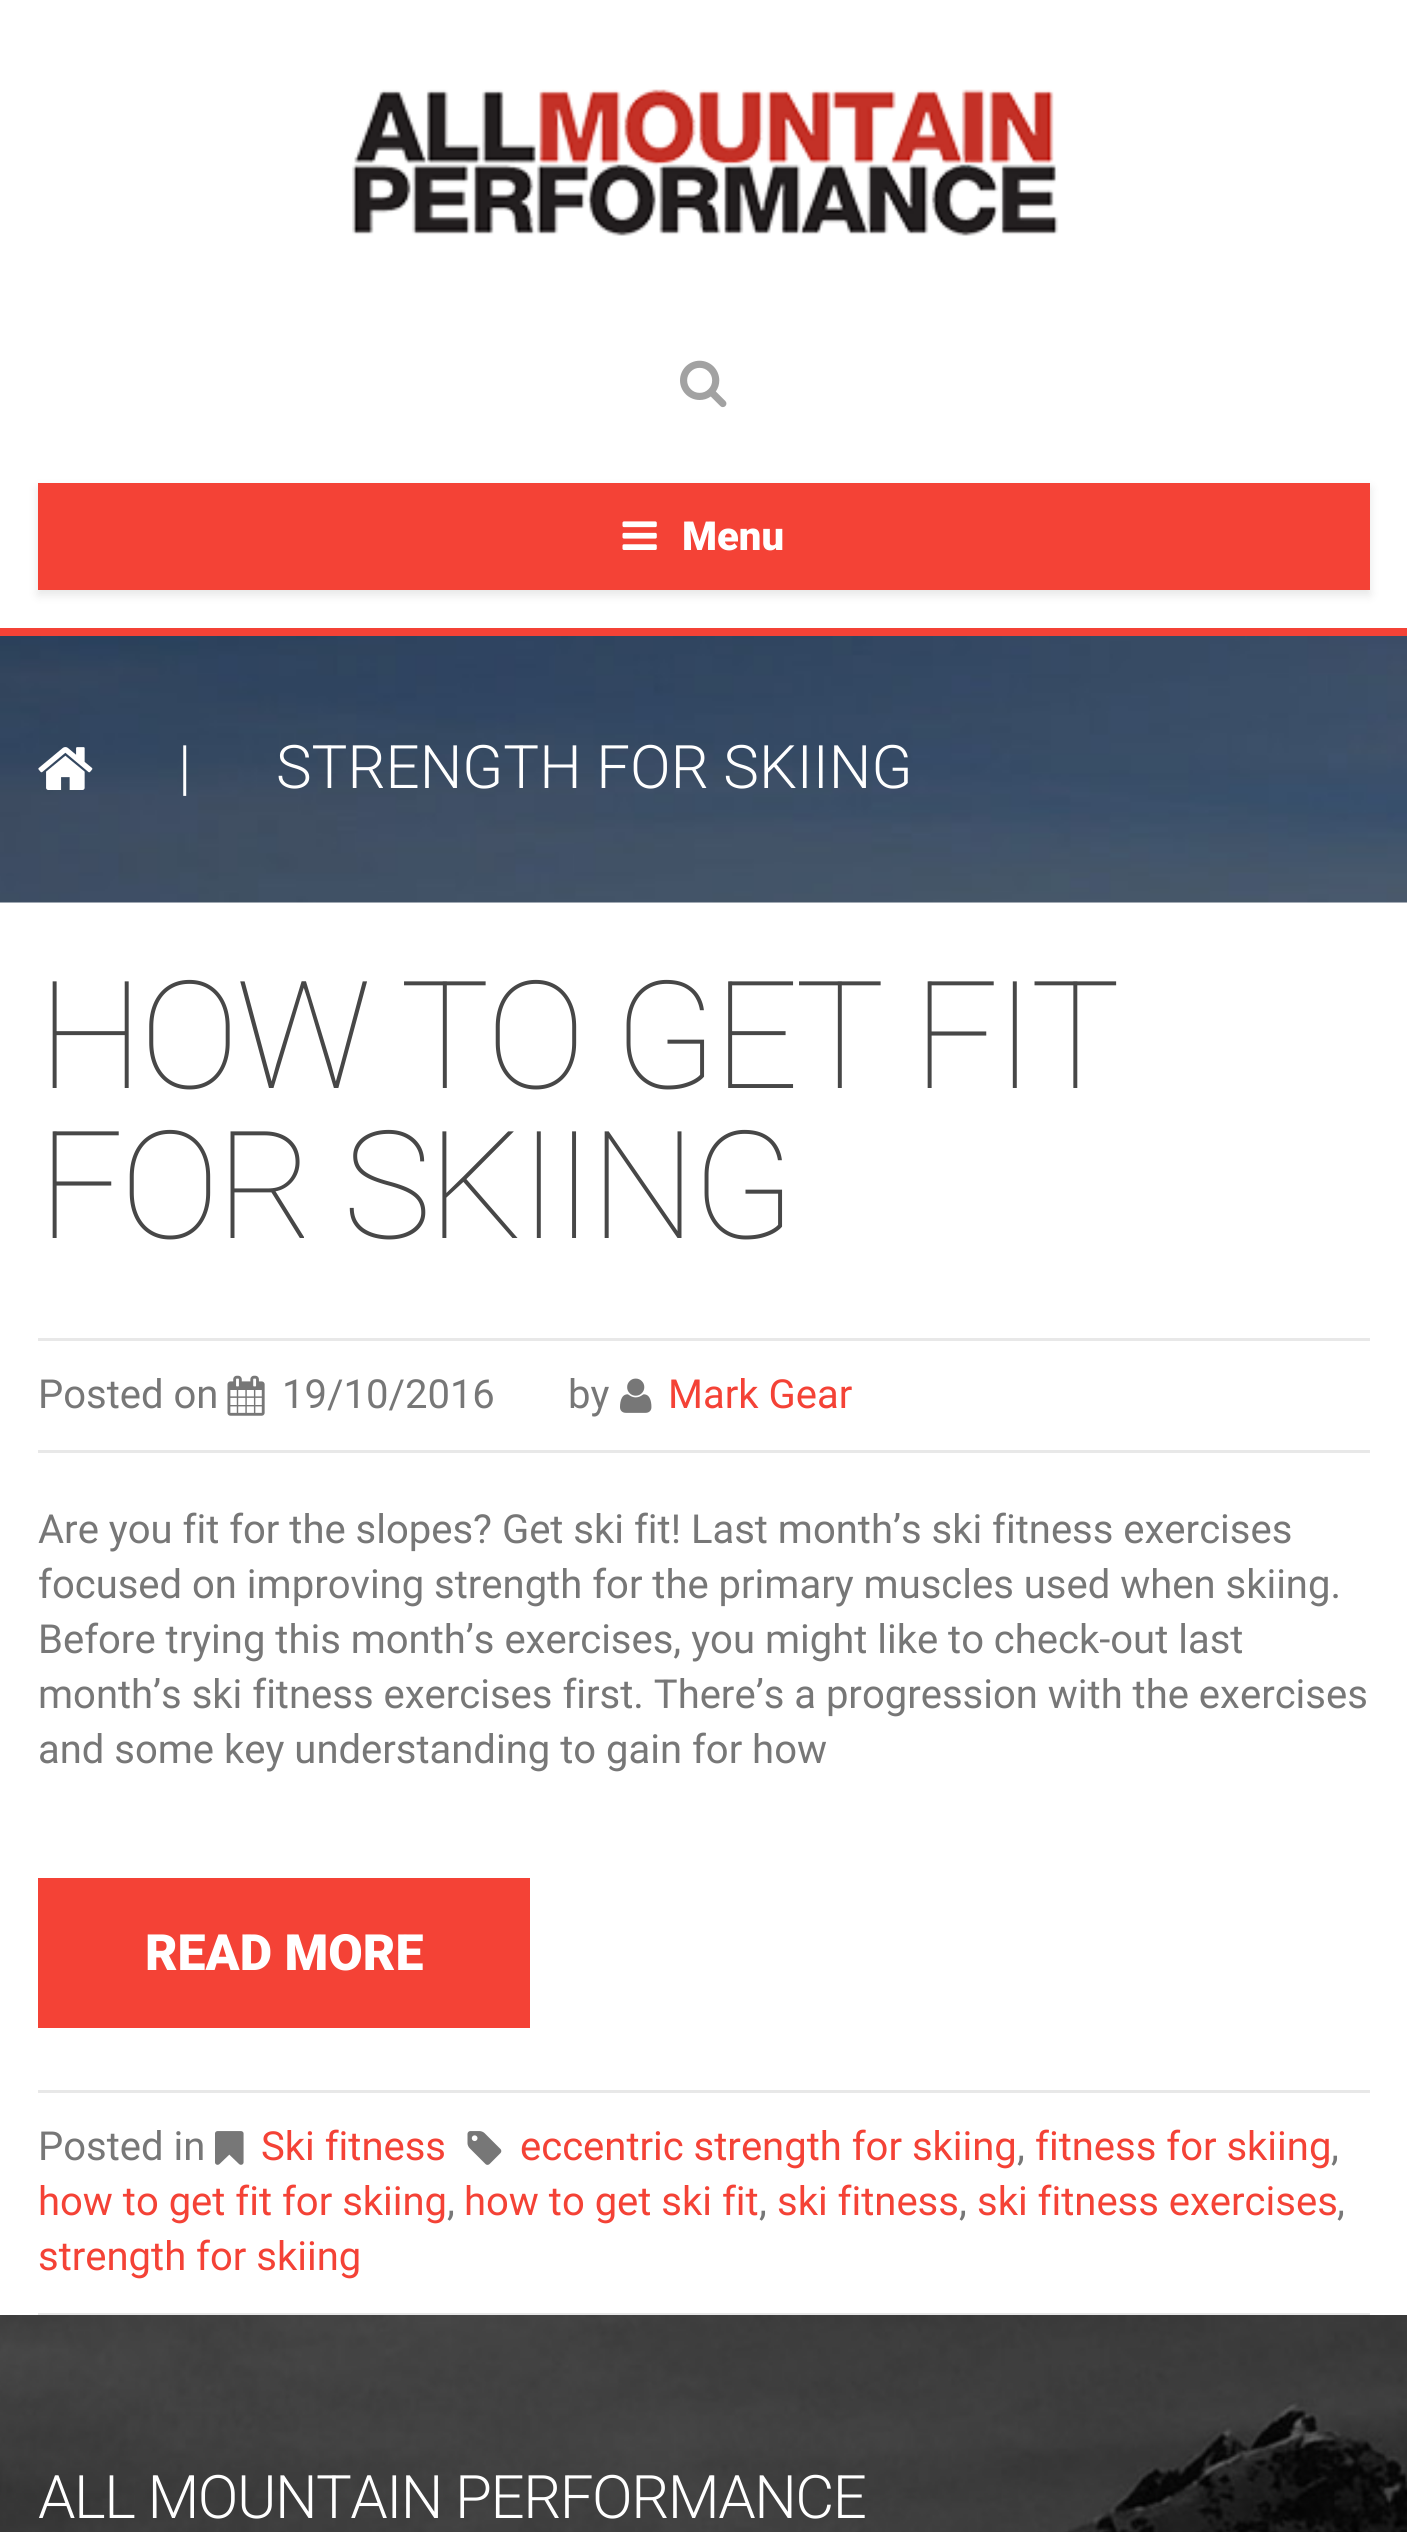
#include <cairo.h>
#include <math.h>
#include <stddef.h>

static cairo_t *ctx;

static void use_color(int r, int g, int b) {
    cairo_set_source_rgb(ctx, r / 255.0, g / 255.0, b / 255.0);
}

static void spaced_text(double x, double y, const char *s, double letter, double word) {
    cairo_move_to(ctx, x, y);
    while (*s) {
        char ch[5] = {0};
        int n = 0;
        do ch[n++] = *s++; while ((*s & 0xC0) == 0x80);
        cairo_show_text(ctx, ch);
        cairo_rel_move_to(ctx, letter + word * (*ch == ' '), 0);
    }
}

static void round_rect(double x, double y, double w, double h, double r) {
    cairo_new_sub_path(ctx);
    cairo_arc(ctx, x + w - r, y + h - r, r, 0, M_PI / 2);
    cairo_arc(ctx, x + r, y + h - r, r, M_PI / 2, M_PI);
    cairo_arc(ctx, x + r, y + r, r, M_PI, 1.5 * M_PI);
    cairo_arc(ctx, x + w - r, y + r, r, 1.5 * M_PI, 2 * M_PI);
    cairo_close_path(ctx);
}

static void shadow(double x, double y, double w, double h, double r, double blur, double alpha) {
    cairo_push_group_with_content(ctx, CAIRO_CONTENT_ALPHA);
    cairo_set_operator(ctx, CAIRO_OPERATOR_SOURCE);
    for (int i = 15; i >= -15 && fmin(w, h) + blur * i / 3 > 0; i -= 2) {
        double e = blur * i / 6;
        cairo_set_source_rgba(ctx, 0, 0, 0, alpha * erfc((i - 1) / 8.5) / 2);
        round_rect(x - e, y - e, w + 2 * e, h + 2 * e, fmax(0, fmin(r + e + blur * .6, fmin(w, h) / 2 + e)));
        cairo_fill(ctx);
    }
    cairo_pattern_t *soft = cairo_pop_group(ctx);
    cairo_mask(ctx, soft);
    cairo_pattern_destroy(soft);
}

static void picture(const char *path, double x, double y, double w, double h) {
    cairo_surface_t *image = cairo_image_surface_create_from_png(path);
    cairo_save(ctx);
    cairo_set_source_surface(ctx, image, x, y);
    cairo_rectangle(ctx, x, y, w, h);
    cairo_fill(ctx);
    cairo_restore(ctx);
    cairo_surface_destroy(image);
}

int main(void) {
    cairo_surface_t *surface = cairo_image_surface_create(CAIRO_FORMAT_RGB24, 1407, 2532);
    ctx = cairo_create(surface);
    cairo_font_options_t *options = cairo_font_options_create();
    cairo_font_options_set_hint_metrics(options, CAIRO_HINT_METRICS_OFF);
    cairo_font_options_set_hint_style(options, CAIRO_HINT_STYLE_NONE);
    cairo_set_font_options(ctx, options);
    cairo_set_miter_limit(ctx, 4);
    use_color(255, 255, 255);
    cairo_paint(ctx);
    use_color(244, 66, 54);
    cairo_rectangle(ctx, 0, 628, 1407, 8);
    cairo_fill(ctx);
    picture("img1.png", 352, 89, 707, 147);
    picture("img2.png", 680, 360, 47, 48);
    use_color(0, 0, 0);
    shadow(38, 488, 1332, 107, 0, 5, 0.1);
    use_color(244, 66, 54);
    cairo_rectangle(ctx, 38, 483, 1332, 107);
    cairo_fill(ctx);
    picture("img3.png", 622, 521, 35, 29);
    cairo_select_font_face(ctx, "Roboto Black", CAIRO_FONT_SLANT_NORMAL, CAIRO_FONT_WEIGHT_NORMAL);
    cairo_set_font_size(ctx, 40);
    use_color(255, 255, 255);
    cairo_move_to(ctx, 682, 550);
    cairo_show_text(ctx, "Menu");
    picture("img4.png", 0, 636, 1407, 267);
    picture("img5.png", 38, 747, 55, 43);
    cairo_select_font_face(ctx, "Roboto Light", CAIRO_FONT_SLANT_NORMAL, CAIRO_FONT_WEIGHT_NORMAL);
    cairo_set_font_size(ctx, 60);
    cairo_move_to(ctx, 178, 788);
    cairo_show_text(ctx, "|");
    cairo_move_to(ctx, 276, 788);
    cairo_show_text(ctx, "STRENGTH FOR SKIING");
    cairo_select_font_face(ctx, "Roboto Thin", CAIRO_FONT_SLANT_NORMAL, CAIRO_FONT_WEIGHT_NORMAL);
    cairo_set_font_size(ctx, 150);
    use_color(71, 71, 71);
    spaced_text(38, 1088, "HOW TO GET FIT", -3.75, 0);
    spaced_text(38, 1238, "FOR SKIING", -3.75, 0);
    use_color(232, 232, 232);
    cairo_rectangle(ctx, 38, 1338, 1332, 3);
    cairo_fill(ctx);
    cairo_rectangle(ctx, 38, 1450, 1332, 3);
    cairo_fill(ctx);
    cairo_select_font_face(ctx, "Roboto", CAIRO_FONT_SLANT_NORMAL, CAIRO_FONT_WEIGHT_NORMAL);
    cairo_set_font_size(ctx, 40);
    use_color(119, 119, 119);
    cairo_move_to(ctx, 38, 1408);
    cairo_show_text(ctx, "Posted on");
    picture("img6.png", 227, 1375, 38, 41);
    cairo_move_to(ctx, 282, 1408);
    cairo_show_text(ctx, "19/10/2016");
    cairo_move_to(ctx, 568, 1408);
    cairo_show_text(ctx, "by");
    picture("img7.png", 620, 1378, 32, 35);
    use_color(244, 66, 54);
    cairo_move_to(ctx, 668, 1408);
    cairo_show_text(ctx, "Mark Gear");
    use_color(119, 119, 119);
    cairo_move_to(ctx, 38, 1543);
    cairo_show_text(ctx, "Are you fit for the slopes? Get ski fit! Last month’s ski fitness exercises");
    cairo_move_to(ctx, 38, 1598);
    cairo_show_text(ctx, "focused on improving strength for the primary muscles used when skiing.");
    cairo_move_to(ctx, 38, 1653);
    cairo_show_text(ctx, "Before trying this month’s exercises, you might like to check-out last");
    cairo_move_to(ctx, 38, 1708);
    cairo_show_text(ctx, "month’s ski fitness exercises first. There’s a progression with the exercises");
    cairo_move_to(ctx, 38, 1763);
    cairo_show_text(ctx, "and some key understanding to gain for how");
    use_color(244, 66, 54);
    cairo_rectangle(ctx, 38, 1878, 492, 150);
    cairo_fill(ctx);
    cairo_select_font_face(ctx, "Roboto Black", CAIRO_FONT_SLANT_NORMAL, CAIRO_FONT_WEIGHT_NORMAL);
    cairo_set_font_size(ctx, 50);
    use_color(255, 255, 255);
    cairo_move_to(ctx, 145, 1970);
    cairo_show_text(ctx, "READ MORE");
    use_color(232, 232, 232);
    cairo_rectangle(ctx, 38, 2090, 1332, 3);
    cairo_fill(ctx);
    cairo_rectangle(ctx, 38, 2313, 1332, 2);
    cairo_fill(ctx);
    cairo_select_font_face(ctx, "Roboto", CAIRO_FONT_SLANT_NORMAL, CAIRO_FONT_WEIGHT_NORMAL);
    cairo_set_font_size(ctx, 40);
    use_color(119, 119, 119);
    cairo_move_to(ctx, 38, 2160);
    cairo_show_text(ctx, "Posted in");
    picture("img8.png", 215, 2131, 29, 34);
    use_color(244, 66, 54);
    cairo_move_to(ctx, 261, 2160);
    cairo_show_text(ctx, "Ski fitness");
    picture("img9.png", 467, 2131, 35, 34);
    cairo_move_to(ctx, 520, 2160);
    cairo_show_text(ctx, "eccentric strength for skiing");
    use_color(119, 119, 119);
    cairo_move_to(ctx, 1017, 2160);
    cairo_show_text(ctx, ",");
    use_color(244, 66, 54);
    cairo_move_to(ctx, 1035, 2160);
    cairo_show_text(ctx, "fitness for skiing");
    use_color(119, 119, 119);
    cairo_move_to(ctx, 1331, 2160);
    cairo_show_text(ctx, ",");
    use_color(244, 66, 54);
    cairo_move_to(ctx, 38, 2215);
    cairo_show_text(ctx, "how to get fit for skiing");
    use_color(119, 119, 119);
    cairo_move_to(ctx, 447, 2215);
    cairo_show_text(ctx, ",");
    use_color(244, 66, 54);
    cairo_move_to(ctx, 464, 2215);
    cairo_show_text(ctx, "how to get ski fit");
    use_color(119, 119, 119);
    cairo_move_to(ctx, 759, 2215);
    cairo_show_text(ctx, ",");
    use_color(244, 66, 54);
    cairo_move_to(ctx, 777, 2215);
    cairo_show_text(ctx, "ski fitness");
    use_color(119, 119, 119);
    cairo_move_to(ctx, 959, 2215);
    cairo_show_text(ctx, ",");
    use_color(244, 66, 54);
    cairo_move_to(ctx, 977, 2215);
    cairo_show_text(ctx, "ski fitness exercises");
    use_color(119, 119, 119);
    cairo_move_to(ctx, 1337, 2215);
    cairo_show_text(ctx, ",");
    use_color(244, 66, 54);
    cairo_move_to(ctx, 38, 2270);
    cairo_show_text(ctx, "strength for skiing");
    picture("img10.png", 0, 2315, 1407, 217);
    cairo_select_font_face(ctx, "Roboto Light", CAIRO_FONT_SLANT_NORMAL, CAIRO_FONT_WEIGHT_NORMAL);
    cairo_set_font_size(ctx, 60);
    use_color(255, 255, 255);
    spaced_text(38, 2518, "ALL MOUNTAIN PERFORMANCE", -1.5, 0);
    cairo_surface_write_to_png(surface, "result.png");
    cairo_font_options_destroy(options);
    cairo_destroy(ctx);
    cairo_surface_destroy(surface);
    return 0;
}
